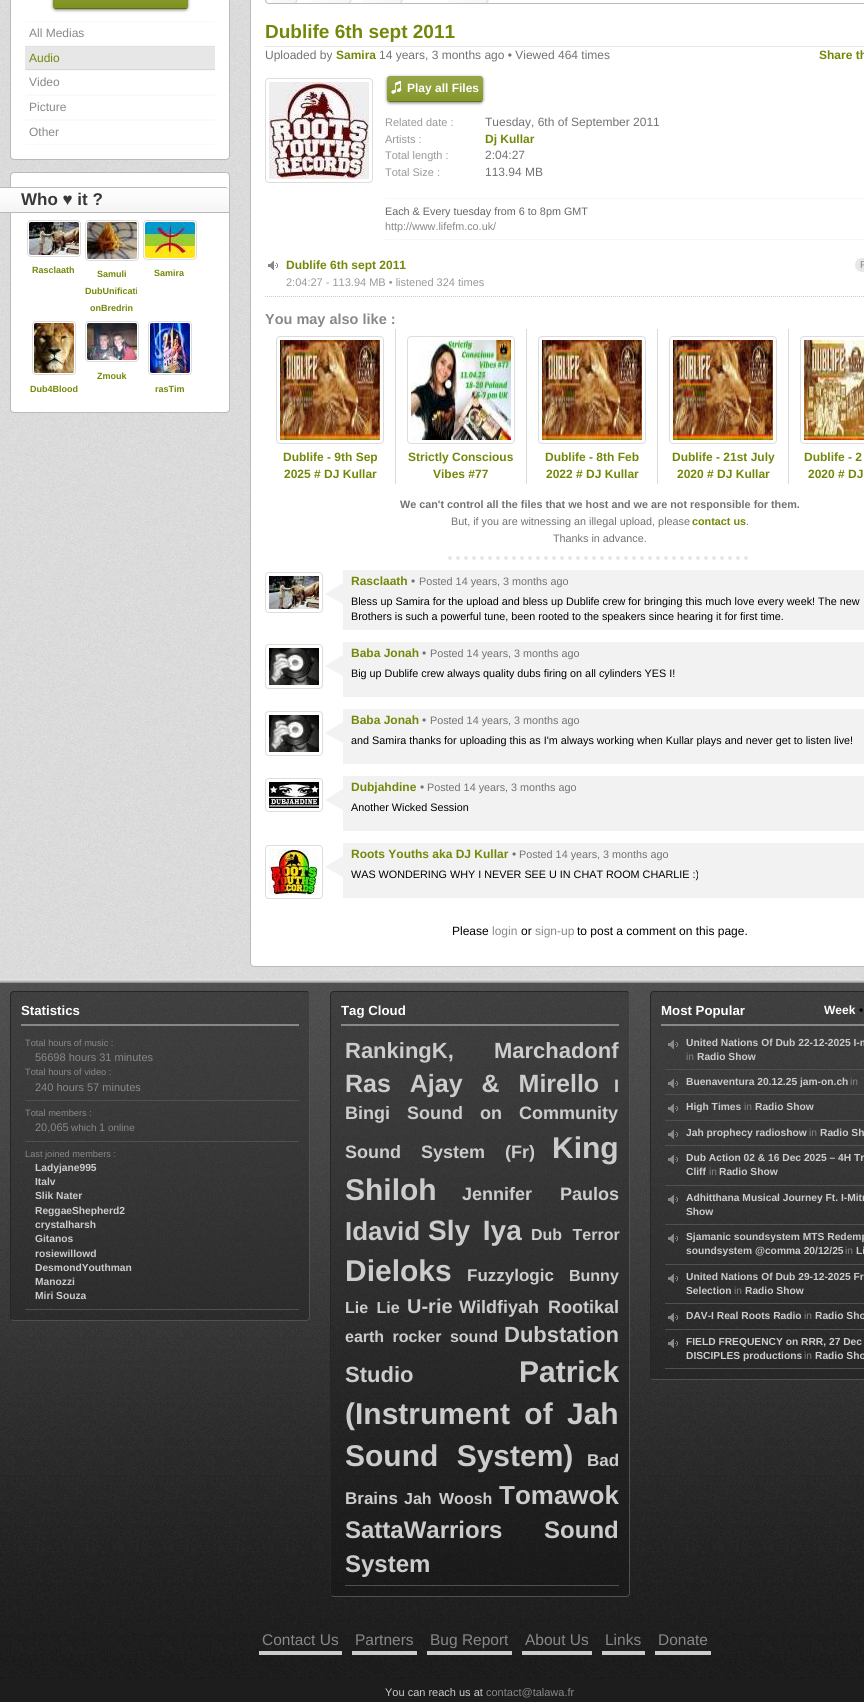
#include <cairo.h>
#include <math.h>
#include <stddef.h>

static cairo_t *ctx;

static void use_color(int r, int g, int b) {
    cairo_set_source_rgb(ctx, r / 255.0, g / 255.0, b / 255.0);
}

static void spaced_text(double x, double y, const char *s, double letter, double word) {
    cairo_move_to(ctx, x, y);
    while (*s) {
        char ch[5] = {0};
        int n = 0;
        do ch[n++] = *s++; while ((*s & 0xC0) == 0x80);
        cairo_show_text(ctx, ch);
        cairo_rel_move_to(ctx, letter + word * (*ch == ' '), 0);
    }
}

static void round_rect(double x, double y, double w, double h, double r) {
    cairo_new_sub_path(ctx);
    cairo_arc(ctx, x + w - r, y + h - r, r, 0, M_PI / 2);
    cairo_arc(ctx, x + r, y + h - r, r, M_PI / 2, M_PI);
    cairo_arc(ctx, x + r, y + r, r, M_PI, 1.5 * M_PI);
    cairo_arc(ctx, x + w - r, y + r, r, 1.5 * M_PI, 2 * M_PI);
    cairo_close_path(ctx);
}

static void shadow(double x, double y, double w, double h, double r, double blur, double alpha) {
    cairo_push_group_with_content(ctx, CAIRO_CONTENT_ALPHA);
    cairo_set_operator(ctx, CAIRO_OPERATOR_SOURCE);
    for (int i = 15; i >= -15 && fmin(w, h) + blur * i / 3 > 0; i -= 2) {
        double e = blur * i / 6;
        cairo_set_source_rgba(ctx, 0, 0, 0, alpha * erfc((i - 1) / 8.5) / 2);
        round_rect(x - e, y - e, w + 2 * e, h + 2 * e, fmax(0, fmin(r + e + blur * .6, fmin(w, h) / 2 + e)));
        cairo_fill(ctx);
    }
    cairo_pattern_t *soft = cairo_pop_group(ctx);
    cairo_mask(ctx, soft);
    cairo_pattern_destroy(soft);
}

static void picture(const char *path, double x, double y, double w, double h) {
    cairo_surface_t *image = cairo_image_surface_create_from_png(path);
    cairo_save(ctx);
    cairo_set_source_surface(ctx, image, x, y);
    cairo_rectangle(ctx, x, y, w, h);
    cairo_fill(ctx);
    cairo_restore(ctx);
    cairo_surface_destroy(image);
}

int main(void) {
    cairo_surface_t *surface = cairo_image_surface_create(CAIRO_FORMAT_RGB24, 864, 1702);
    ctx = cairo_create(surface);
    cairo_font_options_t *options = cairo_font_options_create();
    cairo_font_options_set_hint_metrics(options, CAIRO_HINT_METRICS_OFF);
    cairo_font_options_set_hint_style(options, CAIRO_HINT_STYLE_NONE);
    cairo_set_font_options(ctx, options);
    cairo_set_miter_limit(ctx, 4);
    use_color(255, 255, 255);
    cairo_paint(ctx);
    picture("img1.png", 0, 0, 864, 979);
    use_color(255, 255, 255);
    round_rect(10.5, -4.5, 219, 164, 3.5);
    cairo_fill_preserve(ctx);
    use_color(186, 186, 186);
    cairo_set_line_width(ctx, 1);
    cairo_stroke(ctx);
    use_color(0, 0, 0);
    shadow(53, -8, 135, 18, 3, 1.5, 0.5);
    use_color(115, 136, 10);
    round_rect(53, -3, 135, 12, 3);
    cairo_fill(ctx);
    picture("img2.png", 53, 0, 135, 9);
    cairo_set_source_rgba(ctx, 0, 0, 0, 0.25);
    cairo_rectangle(ctx, 55, 8, 132, 1);
    cairo_fill(ctx);
    use_color(250, 250, 250);
    cairo_new_path(ctx);
    cairo_move_to(ctx, 25, 21);
    cairo_line_to(ctx, 215, 21);
    cairo_line_to(ctx, 215, 22);
    cairo_line_to(ctx, 26, 22);
    cairo_close_path(ctx);
    cairo_fill(ctx);
    cairo_new_path(ctx);
    cairo_move_to(ctx, 215, 46);
    cairo_line_to(ctx, 25, 46);
    cairo_line_to(ctx, 26, 45);
    cairo_line_to(ctx, 215, 45);
    cairo_close_path(ctx);
    cairo_fill(ctx);
    cairo_select_font_face(ctx, "Liberation Sans", CAIRO_FONT_SLANT_NORMAL, CAIRO_FONT_WEIGHT_NORMAL);
    cairo_set_font_size(ctx, 12);
    use_color(136, 136, 136);
    cairo_move_to(ctx, 29, 37);
    cairo_show_text(ctx, "All Medias");
    use_color(231, 231, 231);
    cairo_rectangle(ctx, 25, 46, 190, 24);
    cairo_fill(ctx);
    use_color(226, 226, 226);
    cairo_new_path(ctx);
    cairo_move_to(ctx, 25, 46);
    cairo_line_to(ctx, 215, 46);
    cairo_line_to(ctx, 215, 47);
    cairo_line_to(ctx, 26, 47);
    cairo_close_path(ctx);
    cairo_fill(ctx);
    use_color(215, 215, 215);
    cairo_new_path(ctx);
    cairo_move_to(ctx, 215, 70);
    cairo_line_to(ctx, 25, 70);
    cairo_line_to(ctx, 26, 69);
    cairo_line_to(ctx, 215, 69);
    cairo_close_path(ctx);
    cairo_fill(ctx);
    use_color(115, 136, 10);
    cairo_move_to(ctx, 29, 62);
    cairo_show_text(ctx, "Audio");
    use_color(250, 250, 250);
    cairo_new_path(ctx);
    cairo_move_to(ctx, 25, 70);
    cairo_line_to(ctx, 215, 70);
    cairo_line_to(ctx, 215, 71);
    cairo_line_to(ctx, 26, 71);
    cairo_close_path(ctx);
    cairo_fill(ctx);
    cairo_new_path(ctx);
    cairo_move_to(ctx, 215, 95);
    cairo_line_to(ctx, 25, 95);
    cairo_line_to(ctx, 26, 94);
    cairo_line_to(ctx, 215, 94);
    cairo_close_path(ctx);
    cairo_fill(ctx);
    use_color(136, 136, 136);
    cairo_move_to(ctx, 29, 86);
    cairo_show_text(ctx, "Video");
    use_color(250, 250, 250);
    cairo_new_path(ctx);
    cairo_move_to(ctx, 25, 95);
    cairo_line_to(ctx, 215, 95);
    cairo_line_to(ctx, 215, 96);
    cairo_line_to(ctx, 26, 96);
    cairo_close_path(ctx);
    cairo_fill(ctx);
    cairo_new_path(ctx);
    cairo_move_to(ctx, 215, 120);
    cairo_line_to(ctx, 25, 120);
    cairo_line_to(ctx, 26, 119);
    cairo_line_to(ctx, 215, 119);
    cairo_close_path(ctx);
    cairo_fill(ctx);
    use_color(136, 136, 136);
    cairo_move_to(ctx, 29, 111);
    cairo_show_text(ctx, "Picture");
    use_color(250, 250, 250);
    cairo_new_path(ctx);
    cairo_move_to(ctx, 25, 120);
    cairo_line_to(ctx, 215, 120);
    cairo_line_to(ctx, 215, 121);
    cairo_line_to(ctx, 26, 121);
    cairo_close_path(ctx);
    cairo_fill(ctx);
    cairo_new_path(ctx);
    cairo_move_to(ctx, 215, 145);
    cairo_line_to(ctx, 25, 145);
    cairo_line_to(ctx, 26, 144);
    cairo_line_to(ctx, 215, 144);
    cairo_close_path(ctx);
    cairo_fill(ctx);
    use_color(136, 136, 136);
    cairo_move_to(ctx, 29, 136);
    cairo_show_text(ctx, "Other");
    use_color(255, 255, 255);
    round_rect(10.5, 172.5, 219, 240, 3.5);
    cairo_fill_preserve(ctx);
    use_color(186, 186, 186);
    cairo_stroke(ctx);
    picture("img3.png", 0, 188, 229, 24);
    cairo_set_fill_rule(ctx, CAIRO_FILL_RULE_EVEN_ODD);
    cairo_new_path(ctx);
    cairo_move_to(ctx, -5, 187);
    cairo_line_to(ctx, 225, 187);
    cairo_curve_to(ctx, 227, 187, 229, 189, 229, 191);
    cairo_line_to(ctx, 229, 213);
    cairo_line_to(ctx, -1, 213);
    cairo_curve_to(ctx, -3, 213, -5, 211, -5, 209);
    cairo_close_path(ctx);
    cairo_move_to(ctx, -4, 188);
    cairo_line_to(ctx, 225, 188);
    cairo_curve_to(ctx, 227, 188, 229, 189, 229, 191);
    cairo_line_to(ctx, 229, 212);
    cairo_line_to(ctx, -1, 212);
    cairo_curve_to(ctx, -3, 212, -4, 211, -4, 209);
    cairo_close_path(ctx);
    cairo_fill(ctx);
    cairo_select_font_face(ctx, "Liberation Sans", CAIRO_FONT_SLANT_NORMAL, CAIRO_FONT_WEIGHT_BOLD);
    cairo_set_font_size(ctx, 17);
    use_color(56, 56, 56);
    cairo_move_to(ctx, 21, 205);
    cairo_show_text(ctx, "Who ♥ it ?");
    round_rect(27.5, 220.5, 53, 36, 3.5);
    use_color(221, 221, 221);
    cairo_stroke(ctx);
    picture("img4.png", 29, 222, 50, 33);
    cairo_set_font_size(ctx, 9);
    use_color(115, 136, 10);
    cairo_move_to(ctx, 32, 273);
    cairo_show_text(ctx, "Rasclaath");
    round_rect(85.5, 220.5, 53, 40, 3.5);
    use_color(221, 221, 221);
    cairo_stroke(ctx);
    picture("img5.png", 87, 222, 50, 37);
    use_color(115, 136, 10);
    cairo_move_to(ctx, 97, 277);
    cairo_show_text(ctx, "Samuli");
    cairo_move_to(ctx, 85, 294);
    cairo_show_text(ctx, "DubUnificati");
    cairo_move_to(ctx, 90, 311);
    cairo_show_text(ctx, "onBredrin");
    round_rect(143.5, 220.5, 53, 39, 3.5);
    use_color(221, 221, 221);
    cairo_stroke(ctx);
    picture("img6.png", 145, 222, 50, 36);
    use_color(115, 136, 10);
    cairo_move_to(ctx, 154, 276);
    cairo_show_text(ctx, "Samira");
    round_rect(85.5, 321.5, 53, 40, 3.5);
    use_color(221, 221, 221);
    cairo_stroke(ctx);
    picture("img7.png", 87, 323, 50, 37);
    use_color(115, 136, 10);
    cairo_move_to(ctx, 97, 379);
    cairo_show_text(ctx, "Zmouk");
    round_rect(32.5, 321.5, 43, 53, 3.5);
    use_color(221, 221, 221);
    cairo_stroke(ctx);
    picture("img8.png", 34, 323, 40, 50);
    use_color(115, 136, 10);
    cairo_move_to(ctx, 30, 392);
    cairo_show_text(ctx, "Dub4Blood");
    round_rect(148.5, 321.5, 43, 53, 3.5);
    use_color(221, 221, 221);
    cairo_stroke(ctx);
    picture("img9.png", 150, 323, 40, 50);
    use_color(115, 136, 10);
    cairo_move_to(ctx, 155, 392);
    cairo_show_text(ctx, "rasTim");
    use_color(255, 255, 255);
    round_rect(250.5, -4.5, 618, 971, 3.5);
    cairo_fill_preserve(ctx);
    use_color(186, 186, 186);
    cairo_stroke(ctx);
    round_rect(265.5, -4.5, 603, 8, 3.5);
    cairo_stroke(ctx);
    picture("img10.png", 272, 0, 26, 3);
    picture("img11.png", 311, 0, 41, 3);
    picture("img12.png", 363, 0, 40, 3);
    picture("img13.png", 448, 0, 41, 3);
    use_color(230, 230, 230);
    cairo_rectangle(ctx, 265, 46, 599, 1);
    cairo_fill(ctx);
    cairo_set_font_size(ctx, 19);
    use_color(115, 136, 10);
    cairo_move_to(ctx, 265, 38);
    cairo_show_text(ctx, "Dublife 6th sept 2011");
    cairo_select_font_face(ctx, "Liberation Sans", CAIRO_FONT_SLANT_NORMAL, CAIRO_FONT_WEIGHT_NORMAL);
    cairo_set_font_size(ctx, 12);
    use_color(114, 114, 114);
    cairo_move_to(ctx, 265, 59);
    cairo_show_text(ctx, "Uploaded by");
    cairo_select_font_face(ctx, "Liberation Sans", CAIRO_FONT_SLANT_NORMAL, CAIRO_FONT_WEIGHT_BOLD);
    use_color(115, 136, 10);
    cairo_move_to(ctx, 336, 59);
    cairo_show_text(ctx, "Samira");
    cairo_select_font_face(ctx, "Liberation Sans", CAIRO_FONT_SLANT_NORMAL, CAIRO_FONT_WEIGHT_NORMAL);
    use_color(114, 114, 114);
    cairo_move_to(ctx, 379, 59);
    cairo_show_text(ctx, "14 years, 3 months ago • Viewed 464 times");
    cairo_select_font_face(ctx, "Liberation Sans", CAIRO_FONT_SLANT_NORMAL, CAIRO_FONT_WEIGHT_BOLD);
    use_color(115, 136, 10);
    cairo_move_to(ctx, 819, 59);
    cairo_show_text(ctx, "Share th");
    round_rect(265.5, 78.5, 107, 104, 3.5);
    use_color(221, 221, 221);
    cairo_stroke(ctx);
    picture("img14.png", 269, 82, 100, 97);
    use_color(0, 0, 0);
    shadow(387, 77, 96, 26, 3, 1.5, 0.5);
    use_color(115, 136, 10);
    round_rect(387, 76, 96, 26, 3);
    cairo_fill(ctx);
    picture("img15.png", 387, 76, 96, 26);
    cairo_set_source_rgba(ctx, 0, 0, 0, 0.25);
    cairo_rectangle(ctx, 389, 101, 93, 1);
    cairo_fill(ctx);
    picture("img16.png", 391, 81, 11, 13);
    use_color(255, 255, 255);
    cairo_move_to(ctx, 407, 92);
    cairo_show_text(ctx, "Play all Files");
    cairo_select_font_face(ctx, "Liberation Sans", CAIRO_FONT_SLANT_NORMAL, CAIRO_FONT_WEIGHT_NORMAL);
    cairo_set_font_size(ctx, 11);
    use_color(153, 153, 153);
    cairo_move_to(ctx, 385, 126);
    cairo_show_text(ctx, "Related date :");
    cairo_set_font_size(ctx, 12);
    use_color(114, 114, 114);
    cairo_move_to(ctx, 485, 126);
    cairo_show_text(ctx, "Tuesday, 6th of September 2011");
    cairo_set_font_size(ctx, 11);
    use_color(153, 153, 153);
    cairo_move_to(ctx, 385, 143);
    cairo_show_text(ctx, "Artists :");
    cairo_select_font_face(ctx, "Liberation Sans", CAIRO_FONT_SLANT_NORMAL, CAIRO_FONT_WEIGHT_BOLD);
    cairo_set_font_size(ctx, 12);
    use_color(115, 136, 10);
    cairo_move_to(ctx, 485, 143);
    cairo_show_text(ctx, "Dj Kullar");
    cairo_select_font_face(ctx, "Liberation Sans", CAIRO_FONT_SLANT_NORMAL, CAIRO_FONT_WEIGHT_NORMAL);
    cairo_set_font_size(ctx, 11);
    use_color(153, 153, 153);
    cairo_move_to(ctx, 385, 159);
    cairo_show_text(ctx, "Total length :");
    cairo_set_font_size(ctx, 12);
    use_color(114, 114, 114);
    cairo_move_to(ctx, 485, 159);
    cairo_show_text(ctx, "2:04:27");
    cairo_set_font_size(ctx, 11);
    use_color(153, 153, 153);
    cairo_move_to(ctx, 385, 176);
    cairo_show_text(ctx, "Total Size :");
    cairo_set_font_size(ctx, 12);
    use_color(114, 114, 114);
    cairo_move_to(ctx, 485, 176);
    cairo_show_text(ctx, "113.94 MB");
    use_color(247, 247, 247);
    cairo_rectangle(ctx, 385, 198, 479, 1);
    cairo_fill(ctx);
    cairo_rectangle(ctx, 385, 239, 479, 1);
    cairo_fill(ctx);
    cairo_set_font_size(ctx, 10.8);
    use_color(102, 102, 102);
    cairo_move_to(ctx, 385, 215);
    cairo_show_text(ctx, "Each & Every tuesday from 6 to 8pm GMT");
    use_color(136, 136, 136);
    cairo_move_to(ctx, 385, 230);
    cairo_show_text(ctx, "http://www.lifefm.co.uk/");
    cairo_new_path(ctx);
    cairo_move_to(ctx, 265, 296.5);
    cairo_line_to(ctx, 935, 296.5);
    use_color(204, 204, 204);
    cairo_set_dash(ctx, (double[]){1, 1}, 2, 0);
    cairo_stroke(ctx);
    picture("img17.png", 268, 261, 10, 9);
    cairo_select_font_face(ctx, "Liberation Sans", CAIRO_FONT_SLANT_NORMAL, CAIRO_FONT_WEIGHT_BOLD);
    cairo_set_font_size(ctx, 12);
    use_color(115, 136, 10);
    cairo_move_to(ctx, 286, 269);
    cairo_show_text(ctx, "Dublife 6th sept 2011");
    cairo_select_font_face(ctx, "Liberation Sans", CAIRO_FONT_SLANT_NORMAL, CAIRO_FONT_WEIGHT_NORMAL);
    cairo_set_font_size(ctx, 11);
    use_color(153, 153, 153);
    cairo_move_to(ctx, 286, 286);
    cairo_show_text(ctx, "2:04:27 - 113.94 MB • listened 324 times");
    use_color(231, 231, 231);
    round_rect(855, 258, 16, 14, 7);
    cairo_fill(ctx);
    cairo_set_font_size(ctx, 10);
    use_color(136, 136, 136);
    cairo_move_to(ctx, 860, 268);
    cairo_show_text(ctx, "P");
    cairo_select_font_face(ctx, "Liberation Sans", CAIRO_FONT_SLANT_NORMAL, CAIRO_FONT_WEIGHT_BOLD);
    cairo_set_font_size(ctx, 14.5);
    cairo_move_to(ctx, 265, 324);
    cairo_show_text(ctx, "You may also like :");
    use_color(218, 218, 218);
    cairo_rectangle(ctx, 395, 329, 1, 155);
    cairo_fill(ctx);
    round_rect(276.5, 336.5, 107, 107, 3.5);
    use_color(221, 221, 221);
    cairo_set_dash(ctx, NULL, 0, 0);
    cairo_stroke(ctx);
    picture("img18.png", 280, 340, 100, 100);
    cairo_set_font_size(ctx, 12);
    use_color(115, 136, 10);
    cairo_move_to(ctx, 283, 461);
    cairo_show_text(ctx, "Dublife - 9th Sep");
    cairo_move_to(ctx, 284, 478);
    cairo_show_text(ctx, "2025 # DJ Kullar");
    use_color(218, 218, 218);
    cairo_rectangle(ctx, 526, 329, 1, 155);
    cairo_fill(ctx);
    round_rect(407.5, 336.5, 107, 107, 3.5);
    use_color(221, 221, 221);
    cairo_stroke(ctx);
    picture("img19.png", 411, 340, 100, 100);
    use_color(115, 136, 10);
    cairo_move_to(ctx, 408, 461);
    cairo_show_text(ctx, "Strictly Conscious");
    cairo_move_to(ctx, 433, 478);
    cairo_show_text(ctx, "Vibes #77");
    use_color(218, 218, 218);
    cairo_rectangle(ctx, 657, 329, 1, 155);
    cairo_fill(ctx);
    round_rect(538.5, 336.5, 107, 107, 3.5);
    use_color(221, 221, 221);
    cairo_stroke(ctx);
    picture("img18.png", 542, 340, 100, 100);
    use_color(115, 136, 10);
    cairo_move_to(ctx, 545, 461);
    cairo_show_text(ctx, "Dublife - 8th Feb");
    cairo_move_to(ctx, 546, 478);
    cairo_show_text(ctx, "2022 # DJ Kullar");
    use_color(218, 218, 218);
    cairo_rectangle(ctx, 788, 329, 1, 155);
    cairo_fill(ctx);
    round_rect(669.5, 336.5, 107, 107, 3.5);
    use_color(221, 221, 221);
    cairo_stroke(ctx);
    picture("img20.png", 673, 340, 100, 100);
    use_color(115, 136, 10);
    cairo_move_to(ctx, 672, 461);
    cairo_show_text(ctx, "Dublife - 21st July");
    cairo_move_to(ctx, 677, 478);
    cairo_show_text(ctx, "2020 # DJ Kullar");
    round_rect(800.5, 336.5, 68, 107, 3.5);
    use_color(221, 221, 221);
    cairo_stroke(ctx);
    picture("img21.png", 804, 340, 60, 100);
    use_color(115, 136, 10);
    cairo_move_to(ctx, 804, 461);
    cairo_show_text(ctx, "Dublife - 2");
    cairo_move_to(ctx, 808, 478);
    cairo_show_text(ctx, "2020 # DJ");
    cairo_set_font_size(ctx, 10.8);
    use_color(114, 114, 114);
    cairo_move_to(ctx, 400, 508);
    cairo_show_text(ctx, "We can't control all the files that we host and we are not responsible for them.");
    cairo_select_font_face(ctx, "Liberation Sans", CAIRO_FONT_SLANT_NORMAL, CAIRO_FONT_WEIGHT_NORMAL);
    cairo_move_to(ctx, 451, 525);
    cairo_show_text(ctx, "But, if you are witnessing an illegal upload, please");
    cairo_select_font_face(ctx, "Liberation Sans", CAIRO_FONT_SLANT_NORMAL, CAIRO_FONT_WEIGHT_BOLD);
    use_color(115, 136, 10);
    cairo_move_to(ctx, 692, 525);
    cairo_show_text(ctx, "contact us");
    cairo_select_font_face(ctx, "Liberation Sans", CAIRO_FONT_SLANT_NORMAL, CAIRO_FONT_WEIGHT_NORMAL);
    use_color(114, 114, 114);
    cairo_move_to(ctx, 746, 525);
    cairo_show_text(ctx, ".");
    cairo_move_to(ctx, 553, 542);
    cairo_show_text(ctx, "Thanks in advance.");
    cairo_new_path(ctx);
    cairo_move_to(ctx, 450, 558);
    cairo_line_to(ctx, 750, 558);
    use_color(231, 231, 231);
    cairo_set_line_width(ctx, 4);
    cairo_set_line_cap(ctx, CAIRO_LINE_CAP_ROUND);
    cairo_set_dash(ctx, (double[]){0, 8}, 2, 0);
    cairo_stroke(ctx);
    round_rect(265.5, 572.5, 57, 40, 3.5);
    use_color(221, 221, 221);
    cairo_set_line_width(ctx, 1);
    cairo_set_line_cap(ctx, CAIRO_LINE_CAP_BUTT);
    cairo_set_dash(ctx, NULL, 0, 0);
    cairo_stroke(ctx);
    picture("img22.png", 269, 576, 50, 33);
    use_color(242, 242, 242);
    cairo_rectangle(ctx, 325, 570, 539, 60);
    cairo_fill(ctx);
    picture("img23.png", 325, 570, 18, 60);
    cairo_select_font_face(ctx, "Liberation Sans", CAIRO_FONT_SLANT_NORMAL, CAIRO_FONT_WEIGHT_BOLD);
    cairo_set_font_size(ctx, 12);
    use_color(115, 136, 10);
    cairo_move_to(ctx, 351, 585);
    cairo_show_text(ctx, "Rasclaath");
    cairo_select_font_face(ctx, "Liberation Sans", CAIRO_FONT_SLANT_NORMAL, CAIRO_FONT_WEIGHT_NORMAL);
    use_color(114, 114, 114);
    cairo_move_to(ctx, 411, 585);
    cairo_show_text(ctx, "•");
    cairo_set_font_size(ctx, 10.8);
    cairo_move_to(ctx, 419, 585);
    cairo_show_text(ctx, "Posted 14 years, 3 months ago");
    use_color(0, 0, 0);
    cairo_move_to(ctx, 351, 605);
    cairo_show_text(ctx, "Bless up Samira for the upload and bless up Dublife crew for bringing this much love every week! The new");
    cairo_move_to(ctx, 351, 620);
    cairo_show_text(ctx, "Brothers is such a powerful tune, been rooted to the speakers since hearing it for first time.");
    round_rect(265.5, 644.5, 57, 44, 3.5);
    use_color(221, 221, 221);
    cairo_stroke(ctx);
    picture("img24.png", 269, 648, 50, 37);
    use_color(242, 242, 242);
    cairo_rectangle(ctx, 325, 642, 539, 55);
    cairo_fill(ctx);
    picture("img25.png", 325, 642, 18, 55);
    cairo_select_font_face(ctx, "Liberation Sans", CAIRO_FONT_SLANT_NORMAL, CAIRO_FONT_WEIGHT_BOLD);
    cairo_set_font_size(ctx, 12);
    use_color(115, 136, 10);
    cairo_move_to(ctx, 351, 657);
    cairo_show_text(ctx, "Baba Jonah");
    cairo_select_font_face(ctx, "Liberation Sans", CAIRO_FONT_SLANT_NORMAL, CAIRO_FONT_WEIGHT_NORMAL);
    use_color(114, 114, 114);
    cairo_move_to(ctx, 422, 657);
    cairo_show_text(ctx, "•");
    cairo_set_font_size(ctx, 10.8);
    cairo_move_to(ctx, 430, 657);
    cairo_show_text(ctx, "Posted 14 years, 3 months ago");
    use_color(0, 0, 0);
    cairo_move_to(ctx, 351, 677);
    cairo_show_text(ctx, "Big up Dublife crew always quality dubs firing on all cylinders YES I!");
    round_rect(265.5, 711.5, 57, 44, 3.5);
    use_color(221, 221, 221);
    cairo_stroke(ctx);
    picture("img24.png", 269, 715, 50, 37);
    use_color(242, 242, 242);
    cairo_rectangle(ctx, 325, 709, 539, 55);
    cairo_fill(ctx);
    picture("img25.png", 325, 709, 18, 55);
    cairo_select_font_face(ctx, "Liberation Sans", CAIRO_FONT_SLANT_NORMAL, CAIRO_FONT_WEIGHT_BOLD);
    cairo_set_font_size(ctx, 12);
    use_color(115, 136, 10);
    cairo_move_to(ctx, 351, 724);
    cairo_show_text(ctx, "Baba Jonah");
    cairo_select_font_face(ctx, "Liberation Sans", CAIRO_FONT_SLANT_NORMAL, CAIRO_FONT_WEIGHT_NORMAL);
    use_color(114, 114, 114);
    cairo_move_to(ctx, 422, 724);
    cairo_show_text(ctx, "•");
    cairo_set_font_size(ctx, 10.8);
    cairo_move_to(ctx, 430, 724);
    cairo_show_text(ctx, "Posted 14 years, 3 months ago");
    use_color(0, 0, 0);
    cairo_move_to(ctx, 351, 744);
    cairo_show_text(ctx, "and Samira thanks for uploading this as I'm always working when Kullar plays and never get to listen live!");
    round_rect(265.5, 778.5, 57, 33, 3.5);
    use_color(221, 221, 221);
    cairo_stroke(ctx);
    picture("img26.png", 269, 782, 50, 26);
    use_color(242, 242, 242);
    cairo_rectangle(ctx, 325, 776, 539, 55);
    cairo_fill(ctx);
    picture("img25.png", 325, 776, 18, 55);
    cairo_select_font_face(ctx, "Liberation Sans", CAIRO_FONT_SLANT_NORMAL, CAIRO_FONT_WEIGHT_BOLD);
    cairo_set_font_size(ctx, 12);
    use_color(115, 136, 10);
    cairo_move_to(ctx, 351, 791);
    cairo_show_text(ctx, "Dubjahdine");
    cairo_select_font_face(ctx, "Liberation Sans", CAIRO_FONT_SLANT_NORMAL, CAIRO_FONT_WEIGHT_NORMAL);
    use_color(114, 114, 114);
    cairo_move_to(ctx, 420, 791);
    cairo_show_text(ctx, "•");
    cairo_set_font_size(ctx, 10.8);
    cairo_move_to(ctx, 427, 791);
    cairo_show_text(ctx, "Posted 14 years, 3 months ago");
    use_color(0, 0, 0);
    cairo_move_to(ctx, 351, 811);
    cairo_show_text(ctx, "Another Wicked Session");
    round_rect(265.5, 845.5, 57, 53, 3.5);
    use_color(221, 221, 221);
    cairo_stroke(ctx);
    picture("img27.png", 269, 849, 50, 46);
    use_color(242, 242, 242);
    cairo_rectangle(ctx, 325, 843, 539, 55);
    cairo_fill(ctx);
    picture("img25.png", 325, 843, 18, 55);
    cairo_select_font_face(ctx, "Liberation Sans", CAIRO_FONT_SLANT_NORMAL, CAIRO_FONT_WEIGHT_BOLD);
    cairo_set_font_size(ctx, 12);
    use_color(115, 136, 10);
    cairo_move_to(ctx, 351, 858);
    cairo_show_text(ctx, "Roots Youths aka DJ Kullar");
    cairo_select_font_face(ctx, "Liberation Sans", CAIRO_FONT_SLANT_NORMAL, CAIRO_FONT_WEIGHT_NORMAL);
    use_color(114, 114, 114);
    cairo_move_to(ctx, 512, 858);
    cairo_show_text(ctx, "•");
    cairo_set_font_size(ctx, 10.8);
    cairo_move_to(ctx, 519, 858);
    cairo_show_text(ctx, "Posted 14 years, 3 months ago");
    use_color(0, 0, 0);
    cairo_move_to(ctx, 351, 878);
    cairo_show_text(ctx, "WAS WONDERING WHY I NEVER SEE U IN CHAT ROOM CHARLIE :)");
    cairo_set_font_size(ctx, 12);
    cairo_move_to(ctx, 452, 935);
    cairo_show_text(ctx, "Please");
    use_color(136, 136, 136);
    cairo_move_to(ctx, 492, 935);
    cairo_show_text(ctx, "login");
    use_color(0, 0, 0);
    cairo_move_to(ctx, 521, 935);
    cairo_show_text(ctx, "or");
    use_color(136, 136, 136);
    cairo_move_to(ctx, 535, 935);
    cairo_show_text(ctx, "sign-up");
    use_color(0, 0, 0);
    cairo_move_to(ctx, 577, 935);
    cairo_show_text(ctx, "to post a comment on this page.");
    use_color(29, 29, 29);
    cairo_rectangle(ctx, 0, 1679, 864, 23);
    cairo_fill(ctx);
    picture("img28.png", 0, 979, 864, 700);
    cairo_set_source_rgba(ctx, 0, 0, 0, 0.2);
    round_rect(10, 991, 300, 330, 4);
    cairo_fill(ctx);
    cairo_new_path(ctx);
    cairo_move_to(ctx, 308.5, 992.5);
    cairo_curve_to(ctx, 309, 993, 309.5, 994, 309.5, 995);
    cairo_line_to(ctx, 309.5, 1317);
    cairo_curve_to(ctx, 309.5, 1318, 309, 1319, 308.5, 1319.5);
    cairo_curve_to(ctx, 308, 1320, 307, 1320.5, 306, 1320.5);
    cairo_line_to(ctx, 14, 1320.5);
    cairo_curve_to(ctx, 13, 1320.5, 12, 1320, 11.5, 1319.5);
    use_color(80, 80, 80);
    cairo_stroke(ctx);
    cairo_new_path(ctx);
    cairo_move_to(ctx, 11.5, 1319.5);
    cairo_curve_to(ctx, 11, 1319, 10.5, 1318, 10.5, 1317);
    cairo_line_to(ctx, 10.5, 995);
    cairo_curve_to(ctx, 10.5, 994, 11, 993, 11.5, 992.5);
    cairo_curve_to(ctx, 12, 992, 13, 991.5, 14, 991.5);
    cairo_line_to(ctx, 306, 991.5);
    cairo_curve_to(ctx, 307, 991.5, 308, 992, 308.5, 992.5);
    use_color(38, 38, 38);
    cairo_stroke(ctx);
    use_color(136, 136, 136);
    cairo_rectangle(ctx, 21, 1024, 278, 2);
    cairo_fill(ctx);
    cairo_select_font_face(ctx, "Liberation Sans", CAIRO_FONT_SLANT_NORMAL, CAIRO_FONT_WEIGHT_BOLD);
    cairo_set_font_size(ctx, 13.25);
    use_color(255, 255, 255);
    cairo_move_to(ctx, 21, 1015);
    cairo_show_text(ctx, "Statistics");
    use_color(80, 80, 80);
    cairo_rectangle(ctx, 25, 1100, 274, 1);
    cairo_fill(ctx);
    cairo_select_font_face(ctx, "Liberation Sans", CAIRO_FONT_SLANT_NORMAL, CAIRO_FONT_WEIGHT_NORMAL);
    cairo_set_font_size(ctx, 9.25);
    use_color(136, 136, 136);
    cairo_move_to(ctx, 25, 1046);
    cairo_show_text(ctx, "Total hours of music :");
    cairo_set_font_size(ctx, 11);
    cairo_move_to(ctx, 35, 1061);
    cairo_show_text(ctx, "56698 hours 31 minutes");
    cairo_set_font_size(ctx, 9.25);
    cairo_move_to(ctx, 25, 1075);
    cairo_show_text(ctx, "Total hours of video :");
    cairo_set_font_size(ctx, 11);
    cairo_move_to(ctx, 35, 1091);
    cairo_show_text(ctx, "240 hours 57 minutes");
    use_color(80, 80, 80);
    cairo_rectangle(ctx, 25, 1141, 274, 1);
    cairo_fill(ctx);
    cairo_set_font_size(ctx, 9.25);
    use_color(136, 136, 136);
    cairo_move_to(ctx, 25, 1116);
    cairo_show_text(ctx, "Total members :");
    cairo_set_font_size(ctx, 11);
    cairo_move_to(ctx, 35, 1131);
    cairo_show_text(ctx, "20,065");
    cairo_set_font_size(ctx, 10);
    cairo_move_to(ctx, 71, 1131);
    cairo_show_text(ctx, "which");
    cairo_set_font_size(ctx, 11);
    cairo_move_to(ctx, 99, 1131);
    cairo_show_text(ctx, "1");
    cairo_set_font_size(ctx, 10);
    cairo_move_to(ctx, 108, 1131);
    cairo_show_text(ctx, "online");
    use_color(80, 80, 80);
    cairo_rectangle(ctx, 25, 1309, 274, 1);
    cairo_fill(ctx);
    cairo_set_font_size(ctx, 9.25);
    use_color(136, 136, 136);
    cairo_move_to(ctx, 25, 1157);
    cairo_show_text(ctx, "Last joined members :");
    cairo_select_font_face(ctx, "Liberation Sans", CAIRO_FONT_SLANT_NORMAL, CAIRO_FONT_WEIGHT_BOLD);
    cairo_set_font_size(ctx, 10.25);
    use_color(204, 204, 204);
    cairo_move_to(ctx, 35, 1171);
    cairo_show_text(ctx, "Ladyjane995");
    cairo_move_to(ctx, 35, 1185);
    cairo_show_text(ctx, "Italv");
    cairo_move_to(ctx, 35, 1199);
    cairo_show_text(ctx, "Slik Nater");
    cairo_move_to(ctx, 35, 1214);
    cairo_show_text(ctx, "ReggaeShepherd2");
    cairo_move_to(ctx, 35, 1228);
    cairo_show_text(ctx, "crystalharsh");
    cairo_move_to(ctx, 35, 1242);
    cairo_show_text(ctx, "Gitanos");
    cairo_move_to(ctx, 35, 1257);
    cairo_show_text(ctx, "rosiewillowd");
    cairo_move_to(ctx, 35, 1271);
    cairo_show_text(ctx, "DesmondYouthman");
    cairo_move_to(ctx, 35, 1285);
    cairo_show_text(ctx, "Manozzi");
    cairo_move_to(ctx, 35, 1299);
    cairo_show_text(ctx, "Miri Souza");
    cairo_set_source_rgba(ctx, 0, 0, 0, 0.2);
    round_rect(330, 991, 300, 606, 4);
    cairo_fill(ctx);
    cairo_new_path(ctx);
    cairo_move_to(ctx, 628.5, 992.5);
    cairo_curve_to(ctx, 629, 993, 629.5, 994, 629.5, 995);
    cairo_line_to(ctx, 629.5, 1593);
    cairo_curve_to(ctx, 629.5, 1594, 629, 1595, 628.5, 1595.5);
    cairo_curve_to(ctx, 628, 1596, 627, 1596.5, 626, 1596.5);
    cairo_line_to(ctx, 334, 1596.5);
    cairo_curve_to(ctx, 333, 1596.5, 332, 1596, 331.5, 1595.5);
    use_color(80, 80, 80);
    cairo_stroke(ctx);
    cairo_new_path(ctx);
    cairo_move_to(ctx, 331.5, 1595.5);
    cairo_curve_to(ctx, 331, 1595, 330.5, 1594, 330.5, 1593);
    cairo_line_to(ctx, 330.5, 995);
    cairo_curve_to(ctx, 330.5, 994, 331, 993, 331.5, 992.5);
    cairo_curve_to(ctx, 332, 992, 333, 991.5, 334, 991.5);
    cairo_line_to(ctx, 626, 991.5);
    cairo_curve_to(ctx, 627, 991.5, 628, 992, 628.5, 992.5);
    use_color(38, 38, 38);
    cairo_stroke(ctx);
    use_color(136, 136, 136);
    cairo_rectangle(ctx, 341, 1024, 278, 2);
    cairo_fill(ctx);
    cairo_set_font_size(ctx, 13.25);
    use_color(255, 255, 255);
    cairo_move_to(ctx, 341, 1015);
    cairo_show_text(ctx, "Tag Cloud");
    use_color(80, 80, 80);
    cairo_rectangle(ctx, 345, 1585, 274, 1);
    cairo_fill(ctx);
    cairo_set_font_size(ctx, 22);
    use_color(204, 204, 204);
    spaced_text(345, 1058, "RankingK, Marchadonf", 0, 34);
    cairo_set_font_size(ctx, 25);
    spaced_text(345, 1092, "Ras Ajay & Mirello", 0, 12);
    cairo_set_font_size(ctx, 18);
    cairo_move_to(ctx, 614, 1092);
    cairo_show_text(ctx, "I");
    spaced_text(345, 1119, "Bingi Sound on Community", 0, 12);
    spaced_text(345, 1158, "Sound System (Fr)", 0, 15);
    cairo_set_font_size(ctx, 30);
    cairo_move_to(ctx, 552, 1158);
    cairo_show_text(ctx, "King");
    cairo_move_to(ctx, 345, 1200);
    cairo_show_text(ctx, "Shiloh");
    cairo_set_font_size(ctx, 18);
    spaced_text(462, 1200, "Jennifer Paulos", 0, 23);
    cairo_set_font_size(ctx, 26);
    cairo_move_to(ctx, 345, 1240);
    cairo_show_text(ctx, "Idavid");
    cairo_set_font_size(ctx, 28);
    spaced_text(428, 1240, "Sly Iya", 0, 5);
    cairo_set_font_size(ctx, 16);
    spaced_text(531, 1240, "Dub Terror", 0, 6);
    cairo_set_font_size(ctx, 30);
    cairo_move_to(ctx, 345, 1281);
    cairo_show_text(ctx, "Dieloks");
    cairo_set_font_size(ctx, 17);
    cairo_move_to(ctx, 467, 1281);
    cairo_show_text(ctx, "Fuzzylogic");
    cairo_set_font_size(ctx, 16);
    cairo_move_to(ctx, 569, 1281);
    cairo_show_text(ctx, "Bunny");
    spaced_text(345, 1313, "Lie Lie", 0, 4);
    cairo_set_font_size(ctx, 20);
    cairo_move_to(ctx, 407, 1313);
    cairo_show_text(ctx, "U-rie");
    cairo_set_font_size(ctx, 18);
    spaced_text(459, 1313, "Wildfiyah Rootikal", 0, 4);
    cairo_set_font_size(ctx, 16);
    spaced_text(345, 1342, "earth rocker sound", 0, 4);
    cairo_set_font_size(ctx, 22);
    cairo_move_to(ctx, 504, 1342);
    cairo_show_text(ctx, "Dubstation");
    cairo_move_to(ctx, 345, 1382);
    cairo_show_text(ctx, "Studio");
    cairo_set_font_size(ctx, 30);
    cairo_move_to(ctx, 519, 1382);
    cairo_show_text(ctx, "Patrick");
    spaced_text(345, 1424, "(Instrument of Jah", 0, 6);
    spaced_text(345, 1466, "Sound System)", 0, 10);
    cairo_set_font_size(ctx, 17);
    cairo_move_to(ctx, 587, 1466);
    cairo_show_text(ctx, "Bad");
    cairo_move_to(ctx, 345, 1504);
    cairo_show_text(ctx, "Brains");
    cairo_set_font_size(ctx, 16);
    spaced_text(404, 1504, "Jah Woosh", 0, 3);
    cairo_set_font_size(ctx, 26);
    cairo_move_to(ctx, 499, 1504);
    cairo_show_text(ctx, "Tomawok");
    cairo_set_font_size(ctx, 24);
    spaced_text(345, 1538, "SattaWarriors Sound", 0, 35);
    cairo_move_to(ctx, 345, 1572);
    cairo_show_text(ctx, "System");
    cairo_set_source_rgba(ctx, 0, 0, 0, 0.2);
    round_rect(650, 991, 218, 389, 4);
    cairo_fill(ctx);
    cairo_new_path(ctx);
    cairo_move_to(ctx, 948.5, 992.5);
    cairo_curve_to(ctx, 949, 993, 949.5, 994, 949.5, 995);
    cairo_line_to(ctx, 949.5, 1376);
    cairo_curve_to(ctx, 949.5, 1377, 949, 1378, 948.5, 1378.5);
    cairo_curve_to(ctx, 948, 1379, 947, 1379.5, 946, 1379.5);
    cairo_line_to(ctx, 654, 1379.5);
    cairo_curve_to(ctx, 653, 1379.5, 652, 1379, 651.5, 1378.5);
    use_color(80, 80, 80);
    cairo_stroke(ctx);
    cairo_new_path(ctx);
    cairo_move_to(ctx, 651.5, 1378.5);
    cairo_curve_to(ctx, 651, 1378, 650.5, 1377, 650.5, 1376);
    cairo_line_to(ctx, 650.5, 995);
    cairo_curve_to(ctx, 650.5, 994, 651, 993, 651.5, 992.5);
    cairo_curve_to(ctx, 652, 992, 653, 991.5, 654, 991.5);
    cairo_line_to(ctx, 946, 991.5);
    cairo_curve_to(ctx, 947, 991.5, 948, 992, 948.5, 992.5);
    use_color(38, 38, 38);
    cairo_stroke(ctx);
    use_color(136, 136, 136);
    cairo_rectangle(ctx, 661, 1024, 203, 2);
    cairo_fill(ctx);
    cairo_set_font_size(ctx, 13.25);
    use_color(255, 255, 255);
    cairo_move_to(ctx, 661, 1015);
    cairo_show_text(ctx, "Most Popular");
    cairo_set_font_size(ctx, 12);
    cairo_move_to(ctx, 824, 1014);
    cairo_show_text(ctx, "Week");
    use_color(0, 0, 0);
    cairo_move_to(ctx, 859, 1014);
    cairo_show_text(ctx, "•");
    use_color(80, 80, 80);
    cairo_rectangle(ctx, 665, 1069, 199, 1);
    cairo_fill(ctx);
    picture("img29.png", 668, 1040, 10, 9);
    cairo_set_font_size(ctx, 10.25);
    use_color(204, 204, 204);
    cairo_move_to(ctx, 686, 1046);
    cairo_show_text(ctx, "United Nations Of Dub 22-12-2025 I-m");
    cairo_select_font_face(ctx, "Liberation Sans", CAIRO_FONT_SLANT_NORMAL, CAIRO_FONT_WEIGHT_NORMAL);
    use_color(136, 136, 136);
    cairo_move_to(ctx, 686, 1060);
    cairo_show_text(ctx, "in");
    cairo_select_font_face(ctx, "Liberation Sans", CAIRO_FONT_SLANT_NORMAL, CAIRO_FONT_WEIGHT_BOLD);
    use_color(204, 204, 204);
    cairo_move_to(ctx, 697, 1060);
    cairo_show_text(ctx, "Radio Show");
    use_color(80, 80, 80);
    cairo_rectangle(ctx, 665, 1094, 199, 1);
    cairo_fill(ctx);
    picture("img30.png", 668, 1079, 10, 9);
    use_color(204, 204, 204);
    cairo_move_to(ctx, 686, 1085);
    cairo_show_text(ctx, "Buenaventura 20.12.25 jam-on.ch");
    cairo_select_font_face(ctx, "Liberation Sans", CAIRO_FONT_SLANT_NORMAL, CAIRO_FONT_WEIGHT_NORMAL);
    use_color(136, 136, 136);
    cairo_move_to(ctx, 850, 1085);
    cairo_show_text(ctx, "in");
    use_color(80, 80, 80);
    cairo_rectangle(ctx, 665, 1120, 199, 1);
    cairo_fill(ctx);
    picture("img31.png", 668, 1104, 10, 9);
    cairo_select_font_face(ctx, "Liberation Sans", CAIRO_FONT_SLANT_NORMAL, CAIRO_FONT_WEIGHT_BOLD);
    use_color(204, 204, 204);
    cairo_move_to(ctx, 686, 1110);
    cairo_show_text(ctx, "High Times");
    cairo_select_font_face(ctx, "Liberation Sans", CAIRO_FONT_SLANT_NORMAL, CAIRO_FONT_WEIGHT_NORMAL);
    use_color(136, 136, 136);
    cairo_move_to(ctx, 744, 1110);
    cairo_show_text(ctx, "in");
    cairo_select_font_face(ctx, "Liberation Sans", CAIRO_FONT_SLANT_NORMAL, CAIRO_FONT_WEIGHT_BOLD);
    use_color(204, 204, 204);
    cairo_move_to(ctx, 755, 1110);
    cairo_show_text(ctx, "Radio Show");
    use_color(80, 80, 80);
    cairo_rectangle(ctx, 665, 1145, 199, 1);
    cairo_fill(ctx);
    picture("img32.png", 668, 1130, 10, 9);
    use_color(204, 204, 204);
    cairo_move_to(ctx, 686, 1136);
    cairo_show_text(ctx, "Jah prophecy radioshow");
    cairo_select_font_face(ctx, "Liberation Sans", CAIRO_FONT_SLANT_NORMAL, CAIRO_FONT_WEIGHT_NORMAL);
    use_color(136, 136, 136);
    cairo_move_to(ctx, 809, 1136);
    cairo_show_text(ctx, "in");
    cairo_select_font_face(ctx, "Liberation Sans", CAIRO_FONT_SLANT_NORMAL, CAIRO_FONT_WEIGHT_BOLD);
    use_color(204, 204, 204);
    cairo_move_to(ctx, 820, 1136);
    cairo_show_text(ctx, "Radio Sh");
    use_color(80, 80, 80);
    cairo_rectangle(ctx, 665, 1185, 199, 1);
    cairo_fill(ctx);
    picture("img33.png", 668, 1155, 10, 9);
    use_color(204, 204, 204);
    cairo_move_to(ctx, 686, 1161);
    cairo_show_text(ctx, "Dub Action 02 & 16 Dec 2025 – 4H Tr");
    cairo_move_to(ctx, 686, 1175);
    cairo_show_text(ctx, "Cliff");
    cairo_select_font_face(ctx, "Liberation Sans", CAIRO_FONT_SLANT_NORMAL, CAIRO_FONT_WEIGHT_NORMAL);
    use_color(136, 136, 136);
    cairo_move_to(ctx, 709, 1175);
    cairo_show_text(ctx, "in");
    cairo_select_font_face(ctx, "Liberation Sans", CAIRO_FONT_SLANT_NORMAL, CAIRO_FONT_WEIGHT_BOLD);
    use_color(204, 204, 204);
    cairo_move_to(ctx, 719, 1175);
    cairo_show_text(ctx, "Radio Show");
    use_color(80, 80, 80);
    cairo_rectangle(ctx, 665, 1224, 199, 1);
    cairo_fill(ctx);
    picture("img34.png", 668, 1195, 10, 9);
    use_color(204, 204, 204);
    cairo_move_to(ctx, 686, 1201);
    cairo_show_text(ctx, "Adhitthana Musical Journey Ft. I-Mitr");
    cairo_move_to(ctx, 686, 1215);
    cairo_show_text(ctx, "Show");
    use_color(80, 80, 80);
    cairo_rectangle(ctx, 665, 1264, 199, 1);
    cairo_fill(ctx);
    picture("img35.png", 668, 1234, 10, 9);
    use_color(204, 204, 204);
    cairo_move_to(ctx, 686, 1240);
    cairo_show_text(ctx, "Sjamanic soundsystem MTS Redemp");
    cairo_move_to(ctx, 686, 1254);
    cairo_show_text(ctx, "soundsystem @comma 20/12/25");
    cairo_select_font_face(ctx, "Liberation Sans", CAIRO_FONT_SLANT_NORMAL, CAIRO_FONT_WEIGHT_NORMAL);
    use_color(136, 136, 136);
    cairo_move_to(ctx, 845, 1254);
    cairo_show_text(ctx, "in");
    cairo_select_font_face(ctx, "Liberation Sans", CAIRO_FONT_SLANT_NORMAL, CAIRO_FONT_WEIGHT_BOLD);
    use_color(204, 204, 204);
    cairo_move_to(ctx, 856, 1254);
    cairo_show_text(ctx, "Li");
    use_color(80, 80, 80);
    cairo_rectangle(ctx, 665, 1303, 199, 1);
    cairo_fill(ctx);
    picture("img36.png", 668, 1274, 10, 9);
    use_color(204, 204, 204);
    cairo_move_to(ctx, 686, 1280);
    cairo_show_text(ctx, "United Nations Of Dub 29-12-2025 Fr");
    cairo_move_to(ctx, 686, 1294);
    cairo_show_text(ctx, "Selection");
    cairo_select_font_face(ctx, "Liberation Sans", CAIRO_FONT_SLANT_NORMAL, CAIRO_FONT_WEIGHT_NORMAL);
    use_color(136, 136, 136);
    cairo_move_to(ctx, 734, 1294);
    cairo_show_text(ctx, "in");
    cairo_select_font_face(ctx, "Liberation Sans", CAIRO_FONT_SLANT_NORMAL, CAIRO_FONT_WEIGHT_BOLD);
    use_color(204, 204, 204);
    cairo_move_to(ctx, 745, 1294);
    cairo_show_text(ctx, "Radio Show");
    use_color(80, 80, 80);
    cairo_rectangle(ctx, 665, 1329, 199, 1);
    cairo_fill(ctx);
    picture("img37.png", 668, 1313, 10, 9);
    use_color(204, 204, 204);
    cairo_move_to(ctx, 686, 1319);
    cairo_show_text(ctx, "DAV-I Real Roots Radio");
    cairo_select_font_face(ctx, "Liberation Sans", CAIRO_FONT_SLANT_NORMAL, CAIRO_FONT_WEIGHT_NORMAL);
    use_color(136, 136, 136);
    cairo_move_to(ctx, 804, 1319);
    cairo_show_text(ctx, "in");
    cairo_select_font_face(ctx, "Liberation Sans", CAIRO_FONT_SLANT_NORMAL, CAIRO_FONT_WEIGHT_BOLD);
    use_color(204, 204, 204);
    cairo_move_to(ctx, 815, 1319);
    cairo_show_text(ctx, "Radio Sho");
    use_color(80, 80, 80);
    cairo_rectangle(ctx, 665, 1368, 199, 1);
    cairo_fill(ctx);
    picture("img38.png", 668, 1339, 10, 9);
    use_color(204, 204, 204);
    cairo_move_to(ctx, 686, 1345);
    cairo_show_text(ctx, "FIELD FREQUENCY on RRR, 27 Dec");
    cairo_move_to(ctx, 686, 1359);
    cairo_show_text(ctx, "DISCIPLES productions");
    cairo_select_font_face(ctx, "Liberation Sans", CAIRO_FONT_SLANT_NORMAL, CAIRO_FONT_WEIGHT_NORMAL);
    use_color(136, 136, 136);
    cairo_move_to(ctx, 804, 1359);
    cairo_show_text(ctx, "in");
    cairo_select_font_face(ctx, "Liberation Sans", CAIRO_FONT_SLANT_NORMAL, CAIRO_FONT_WEIGHT_BOLD);
    use_color(204, 204, 204);
    cairo_move_to(ctx, 815, 1359);
    cairo_show_text(ctx, "Radio Sho");
    cairo_select_font_face(ctx, "Liberation Sans", CAIRO_FONT_SLANT_NORMAL, CAIRO_FONT_WEIGHT_NORMAL);
    cairo_set_font_size(ctx, 15.5);
    use_color(136, 136, 136);
    cairo_move_to(ctx, 262, 1645);
    cairo_show_text(ctx, "Contact Us");
    use_color(204, 204, 204);
    cairo_rectangle(ctx, 259, 1651, 83, 4);
    cairo_fill(ctx);
    use_color(136, 136, 136);
    cairo_move_to(ctx, 355, 1645);
    cairo_show_text(ctx, "Partners");
    use_color(204, 204, 204);
    cairo_rectangle(ctx, 352, 1651, 65, 4);
    cairo_fill(ctx);
    use_color(136, 136, 136);
    cairo_move_to(ctx, 430, 1645);
    cairo_show_text(ctx, "Bug Report");
    use_color(204, 204, 204);
    cairo_rectangle(ctx, 427, 1651, 85, 4);
    cairo_fill(ctx);
    use_color(136, 136, 136);
    cairo_move_to(ctx, 525, 1645);
    cairo_show_text(ctx, "About Us");
    use_color(204, 204, 204);
    cairo_rectangle(ctx, 522, 1651, 70, 4);
    cairo_fill(ctx);
    use_color(136, 136, 136);
    cairo_move_to(ctx, 605, 1645);
    cairo_show_text(ctx, "Links");
    use_color(204, 204, 204);
    cairo_rectangle(ctx, 602, 1651, 43, 4);
    cairo_fill(ctx);
    use_color(136, 136, 136);
    cairo_move_to(ctx, 658, 1645);
    cairo_show_text(ctx, "Donate");
    use_color(204, 204, 204);
    cairo_rectangle(ctx, 655, 1651, 56, 4);
    cairo_fill(ctx);
    cairo_set_font_size(ctx, 11);
    cairo_move_to(ctx, 385, 1696);
    cairo_show_text(ctx, "You can reach us at");
    use_color(136, 136, 136);
    cairo_move_to(ctx, 486, 1696);
    cairo_show_text(ctx, "contact@talawa.fr");
    cairo_surface_write_to_png(surface, "result.png");
    cairo_font_options_destroy(options);
    cairo_destroy(ctx);
    cairo_surface_destroy(surface);
    return 0;
}
